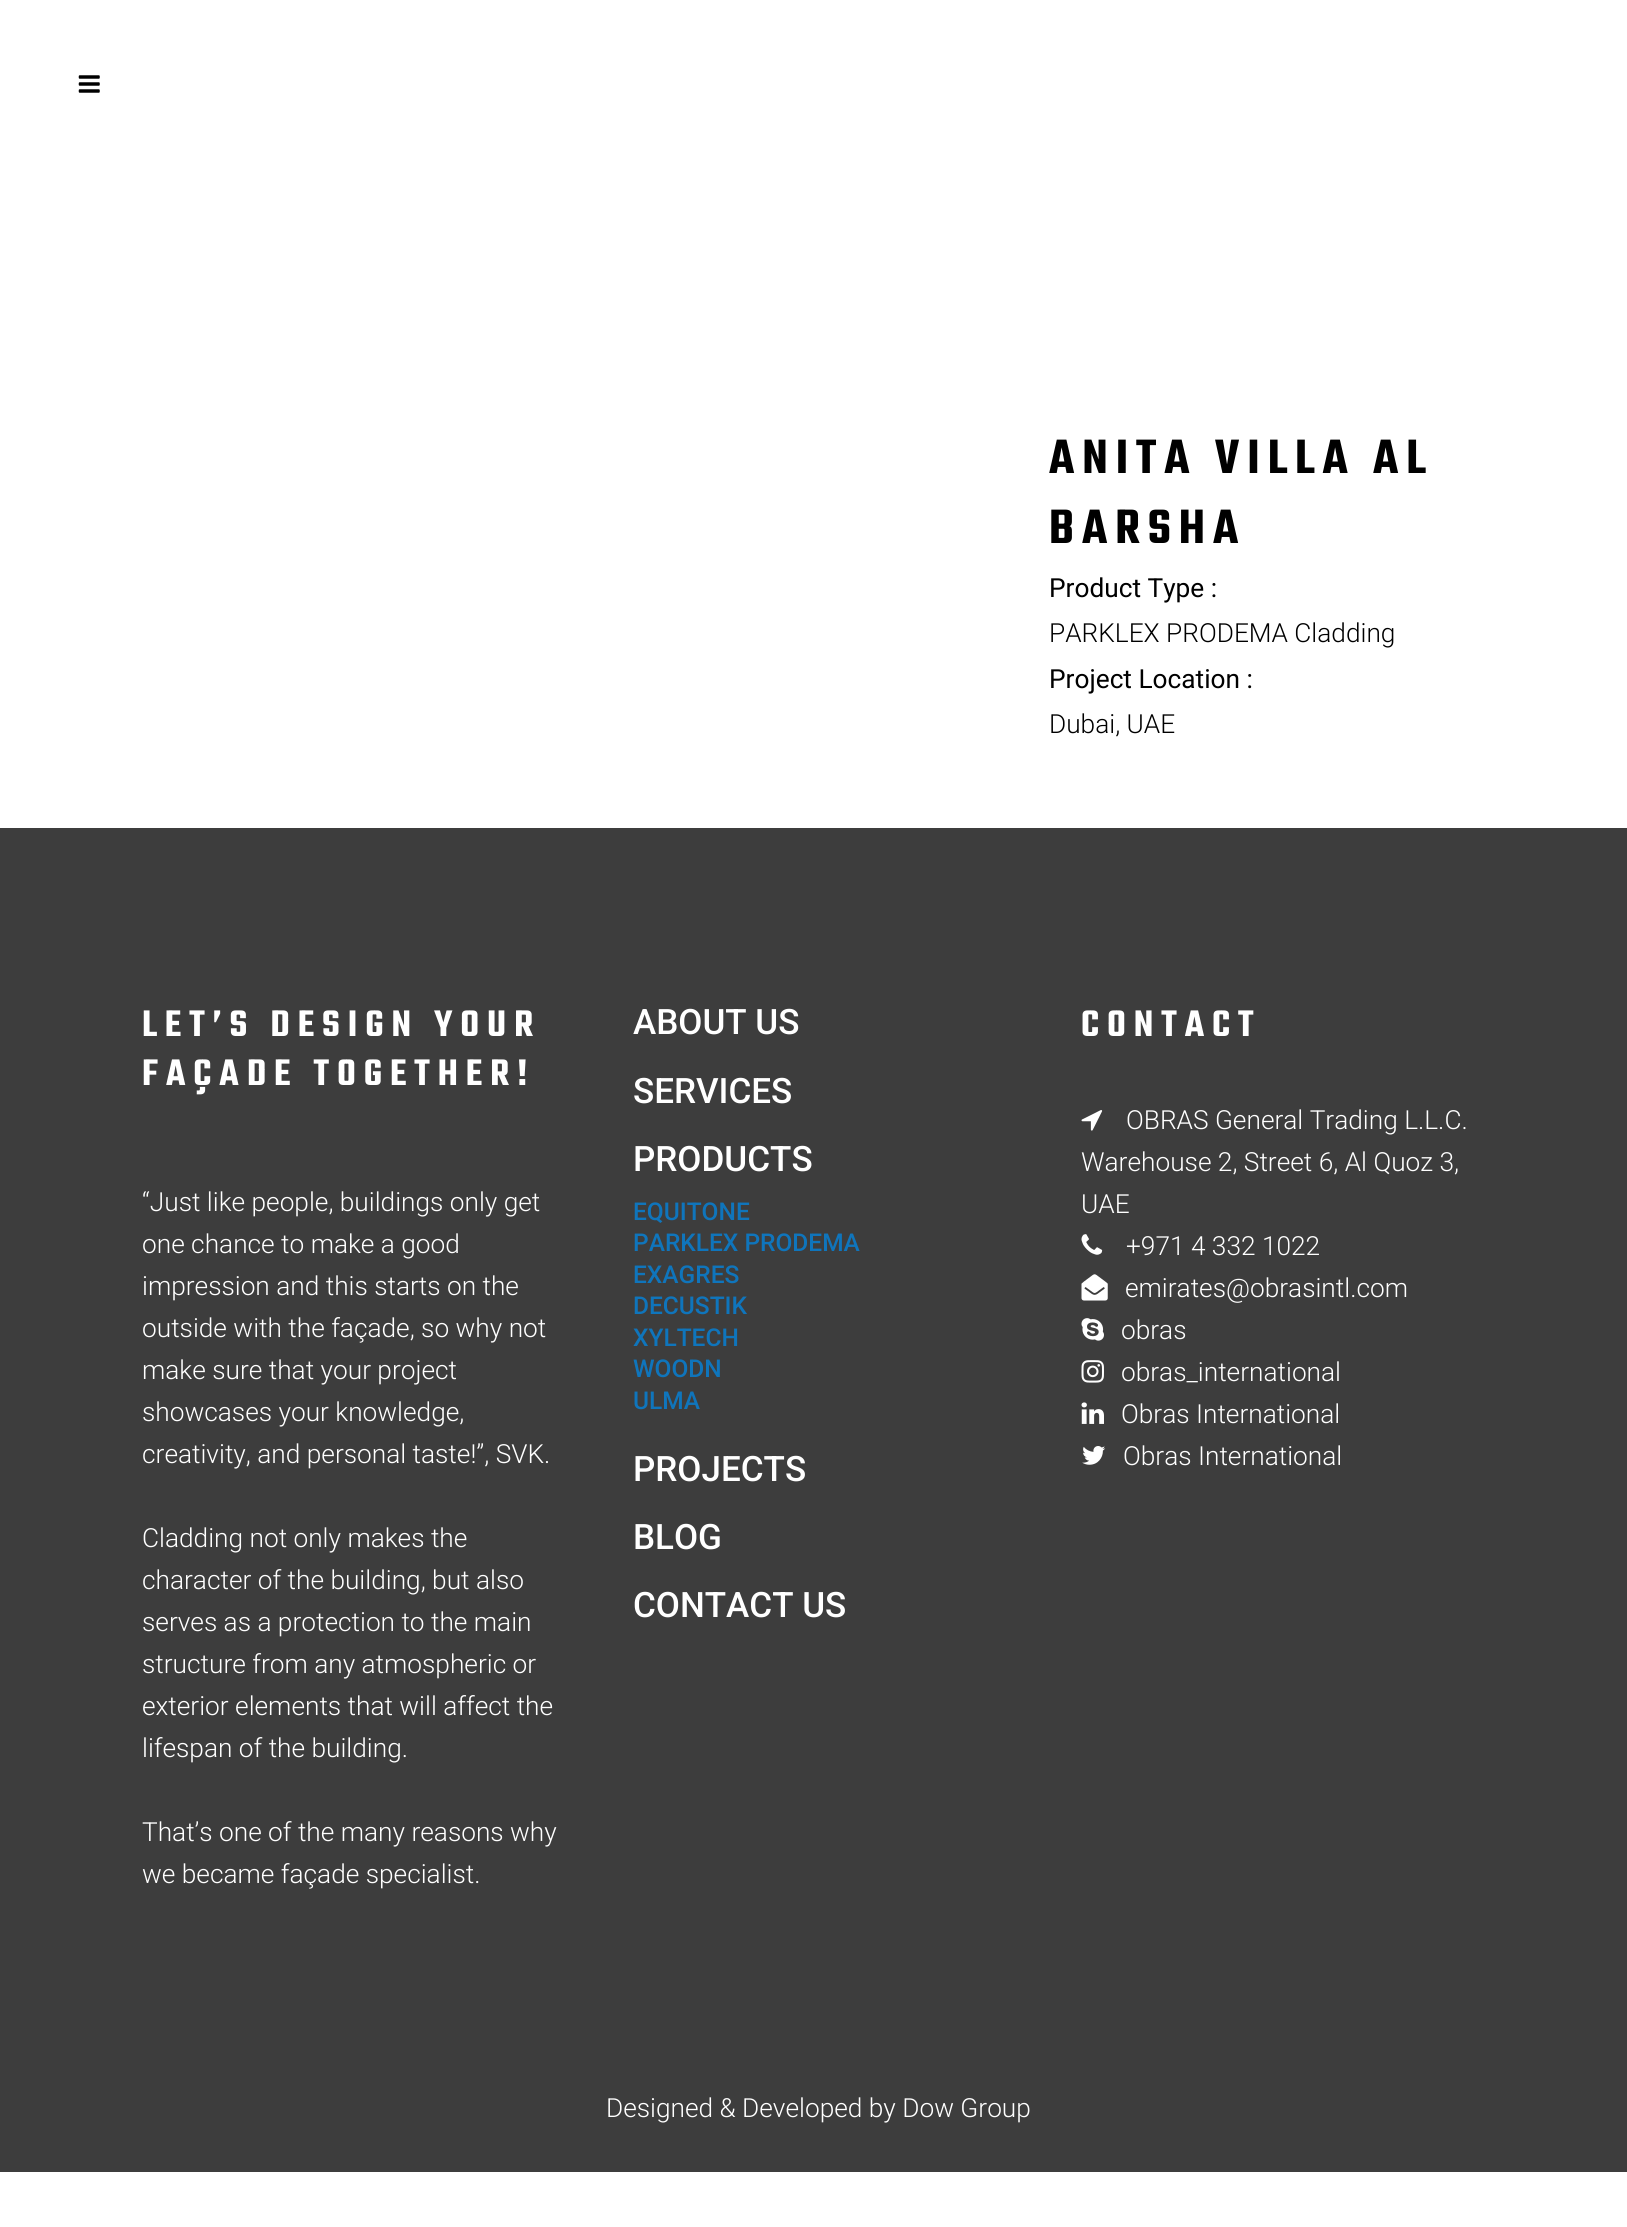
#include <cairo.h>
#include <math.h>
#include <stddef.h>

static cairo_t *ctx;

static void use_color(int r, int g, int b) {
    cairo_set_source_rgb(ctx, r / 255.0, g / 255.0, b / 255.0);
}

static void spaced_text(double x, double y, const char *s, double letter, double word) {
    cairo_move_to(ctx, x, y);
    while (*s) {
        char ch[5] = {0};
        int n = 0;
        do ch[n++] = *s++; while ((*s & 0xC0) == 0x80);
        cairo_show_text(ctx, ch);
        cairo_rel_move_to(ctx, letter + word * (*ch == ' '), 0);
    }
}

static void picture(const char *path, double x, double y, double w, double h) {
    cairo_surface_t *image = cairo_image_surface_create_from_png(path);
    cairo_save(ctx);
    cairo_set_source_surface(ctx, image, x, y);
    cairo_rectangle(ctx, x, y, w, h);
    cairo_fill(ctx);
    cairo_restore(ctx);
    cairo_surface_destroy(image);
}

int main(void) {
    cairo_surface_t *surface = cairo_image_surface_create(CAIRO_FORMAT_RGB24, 1627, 2227);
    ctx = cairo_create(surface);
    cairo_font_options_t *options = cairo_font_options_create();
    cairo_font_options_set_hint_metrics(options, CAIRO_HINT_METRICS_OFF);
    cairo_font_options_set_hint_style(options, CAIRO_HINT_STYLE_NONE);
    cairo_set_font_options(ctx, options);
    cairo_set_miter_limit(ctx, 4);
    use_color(255, 255, 255);
    cairo_paint(ctx);
    picture("img1.png", 78, 75, 22, 18);
    cairo_select_font_face(ctx, "Teko SemiBold", CAIRO_FONT_SLANT_NORMAL, CAIRO_FONT_WEIGHT_NORMAL);
    cairo_set_font_size(ctx, 52.5);
    use_color(0, 0, 0);
    spaced_text(1049, 473, "ANITA VILLA AL", 7.9, 0);
    spaced_text(1049, 543, "BARSHA", 7.9, 0);
    cairo_select_font_face(ctx, "Roboto", CAIRO_FONT_SLANT_NORMAL, CAIRO_FONT_WEIGHT_NORMAL);
    cairo_set_font_size(ctx, 26.25);
    cairo_move_to(ctx, 1049, 597);
    cairo_show_text(ctx, "Product Type :");
    cairo_select_font_face(ctx, "Roboto Light", CAIRO_FONT_SLANT_NORMAL, CAIRO_FONT_WEIGHT_NORMAL);
    cairo_move_to(ctx, 1049, 642);
    cairo_show_text(ctx, "PARKLEX PRODEMA Cladding");
    cairo_select_font_face(ctx, "Roboto", CAIRO_FONT_SLANT_NORMAL, CAIRO_FONT_WEIGHT_NORMAL);
    cairo_move_to(ctx, 1049, 688);
    cairo_show_text(ctx, "Project Location :");
    cairo_select_font_face(ctx, "Roboto Light", CAIRO_FONT_SLANT_NORMAL, CAIRO_FONT_WEIGHT_NORMAL);
    cairo_move_to(ctx, 1049, 733);
    cairo_show_text(ctx, "Dubai, UAE");
    use_color(61, 61, 61);
    cairo_rectangle(ctx, 0, 828, 1627, 1344);
    cairo_fill(ctx);
    cairo_select_font_face(ctx, "Teko SemiBold", CAIRO_FONT_SLANT_NORMAL, CAIRO_FONT_WEIGHT_NORMAL);
    cairo_set_font_size(ctx, 40.25);
    use_color(255, 255, 255);
    spaced_text(142, 1036, "LET’S DESIGN YOUR", 7.9, 0);
    spaced_text(142, 1085, "FAÇADE TOGETHER!", 7.9, 0);
    cairo_select_font_face(ctx, "Roboto Light", CAIRO_FONT_SLANT_NORMAL, CAIRO_FONT_WEIGHT_NORMAL);
    cairo_set_font_size(ctx, 26.25);
    cairo_move_to(ctx, 142, 1211);
    cairo_show_text(ctx, "“Just like people, buildings only get");
    cairo_move_to(ctx, 142, 1253);
    cairo_show_text(ctx, "one chance to make a good");
    cairo_move_to(ctx, 142, 1295);
    cairo_show_text(ctx, "impression and this starts on the");
    cairo_move_to(ctx, 142, 1337);
    cairo_show_text(ctx, "outside with the façade, so why not");
    cairo_move_to(ctx, 142, 1379);
    cairo_show_text(ctx, "make sure that your project");
    cairo_move_to(ctx, 142, 1421);
    cairo_show_text(ctx, "showcases your knowledge,");
    cairo_move_to(ctx, 142, 1463);
    cairo_show_text(ctx, "creativity, and personal taste!”, SVK.");
    cairo_move_to(ctx, 142, 1547);
    cairo_show_text(ctx, "Cladding not only makes the");
    cairo_move_to(ctx, 142, 1589);
    cairo_show_text(ctx, "character of the building, but also");
    cairo_move_to(ctx, 142, 1631);
    cairo_show_text(ctx, "serves as a protection to the main");
    cairo_move_to(ctx, 142, 1673);
    cairo_show_text(ctx, "structure from any atmospheric or");
    cairo_move_to(ctx, 142, 1715);
    cairo_show_text(ctx, "exterior elements that will affect the");
    cairo_move_to(ctx, 142, 1757);
    cairo_show_text(ctx, "lifespan of the building.");
    cairo_move_to(ctx, 142, 1841);
    cairo_show_text(ctx, "That’s one of the many reasons why");
    cairo_move_to(ctx, 142, 1883);
    cairo_show_text(ctx, "we became façade specialist.");
    cairo_select_font_face(ctx, "Roboto Medium", CAIRO_FONT_SLANT_NORMAL, CAIRO_FONT_WEIGHT_NORMAL);
    cairo_set_font_size(ctx, 35);
    cairo_move_to(ctx, 633, 1034);
    cairo_show_text(ctx, "ABOUT US");
    cairo_move_to(ctx, 633, 1103);
    cairo_show_text(ctx, "SERVICES");
    cairo_move_to(ctx, 633, 1171);
    cairo_show_text(ctx, "PRODUCTS");
    cairo_set_font_size(ctx, 24.5);
    use_color(15, 117, 188);
    cairo_move_to(ctx, 633, 1220);
    cairo_show_text(ctx, "EQUITONE");
    cairo_move_to(ctx, 633, 1251);
    cairo_show_text(ctx, "PARKLEX PRODEMA");
    cairo_move_to(ctx, 633, 1283);
    cairo_show_text(ctx, "EXAGRES");
    cairo_move_to(ctx, 633, 1314);
    cairo_show_text(ctx, "DECUSTIK");
    cairo_move_to(ctx, 633, 1346);
    cairo_show_text(ctx, "XYLTECH");
    cairo_move_to(ctx, 633, 1377);
    cairo_show_text(ctx, "WOODN");
    cairo_move_to(ctx, 633, 1409);
    cairo_show_text(ctx, "ULMA");
    cairo_set_font_size(ctx, 35);
    use_color(255, 255, 255);
    cairo_move_to(ctx, 633, 1481);
    cairo_show_text(ctx, "PROJECTS");
    cairo_move_to(ctx, 633, 1549);
    cairo_show_text(ctx, "BLOG");
    cairo_move_to(ctx, 633, 1617);
    cairo_show_text(ctx, "CONTACT US");
    cairo_select_font_face(ctx, "Teko SemiBold", CAIRO_FONT_SLANT_NORMAL, CAIRO_FONT_WEIGHT_NORMAL);
    cairo_set_font_size(ctx, 40.25);
    spaced_text(1081, 1036, "CONTACT", 7.9, 0);
    picture("img2.png", 1081, 1110, 22, 21);
    cairo_select_font_face(ctx, "Roboto Light", CAIRO_FONT_SLANT_NORMAL, CAIRO_FONT_WEIGHT_NORMAL);
    cairo_set_font_size(ctx, 26.25);
    cairo_move_to(ctx, 1126, 1129);
    cairo_show_text(ctx, "OBRAS General Trading L.L.C.");
    cairo_move_to(ctx, 1081, 1171);
    cairo_show_text(ctx, "Warehouse 2, Street 6, Al Quoz 3,");
    cairo_move_to(ctx, 1081, 1213);
    cairo_show_text(ctx, "UAE");
    picture("img3.png", 1081, 1234, 22, 21);
    cairo_move_to(ctx, 1126, 1255);
    cairo_show_text(ctx, "+971 4 332 1022");
    picture("img4.png", 1081, 1274, 27, 27);
    cairo_move_to(ctx, 1125, 1297);
    cairo_show_text(ctx, "emirates@obrasintl.com");
    picture("img5.png", 1081, 1318, 23, 23);
    cairo_move_to(ctx, 1121, 1339);
    cairo_show_text(ctx, "obras");
    picture("img6.png", 1081, 1360, 23, 23);
    cairo_move_to(ctx, 1121, 1381);
    cairo_show_text(ctx, "obras_international");
    picture("img7.png", 1081, 1402, 23, 22);
    cairo_move_to(ctx, 1121, 1423);
    cairo_show_text(ctx, "Obras International");
    picture("img8.png", 1082, 1446, 24, 19);
    cairo_move_to(ctx, 1123, 1465);
    cairo_show_text(ctx, "Obras International");
    cairo_move_to(ctx, 606, 2117);
    cairo_show_text(ctx, "Designed & Developed by Dow Group");
    cairo_surface_write_to_png(surface, "result.png");
    cairo_font_options_destroy(options);
    cairo_destroy(ctx);
    cairo_surface_destroy(surface);
    return 0;
}
